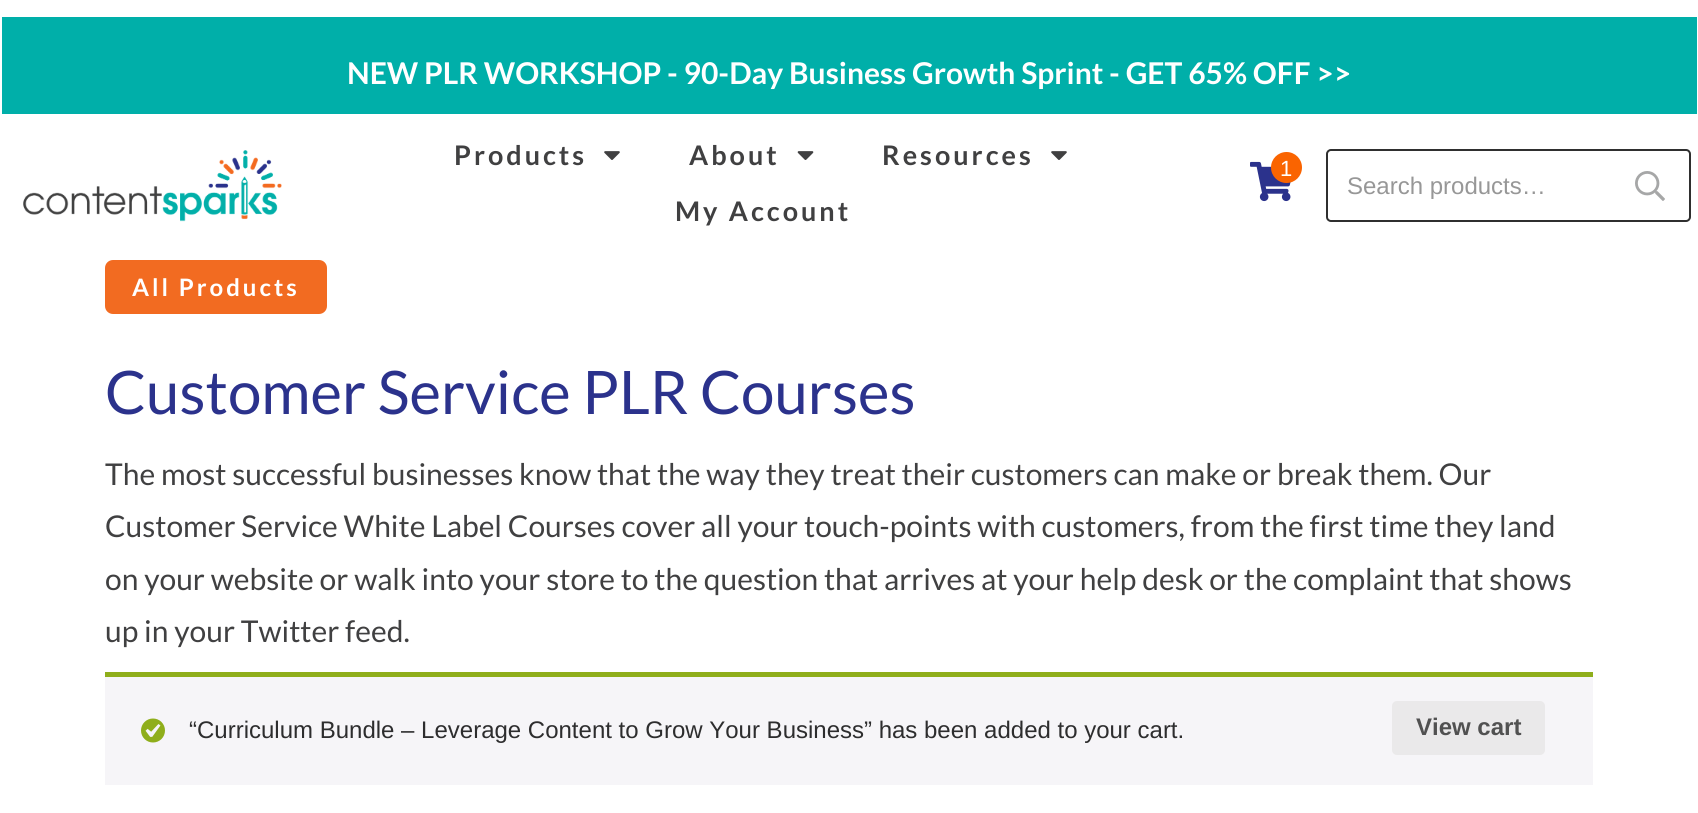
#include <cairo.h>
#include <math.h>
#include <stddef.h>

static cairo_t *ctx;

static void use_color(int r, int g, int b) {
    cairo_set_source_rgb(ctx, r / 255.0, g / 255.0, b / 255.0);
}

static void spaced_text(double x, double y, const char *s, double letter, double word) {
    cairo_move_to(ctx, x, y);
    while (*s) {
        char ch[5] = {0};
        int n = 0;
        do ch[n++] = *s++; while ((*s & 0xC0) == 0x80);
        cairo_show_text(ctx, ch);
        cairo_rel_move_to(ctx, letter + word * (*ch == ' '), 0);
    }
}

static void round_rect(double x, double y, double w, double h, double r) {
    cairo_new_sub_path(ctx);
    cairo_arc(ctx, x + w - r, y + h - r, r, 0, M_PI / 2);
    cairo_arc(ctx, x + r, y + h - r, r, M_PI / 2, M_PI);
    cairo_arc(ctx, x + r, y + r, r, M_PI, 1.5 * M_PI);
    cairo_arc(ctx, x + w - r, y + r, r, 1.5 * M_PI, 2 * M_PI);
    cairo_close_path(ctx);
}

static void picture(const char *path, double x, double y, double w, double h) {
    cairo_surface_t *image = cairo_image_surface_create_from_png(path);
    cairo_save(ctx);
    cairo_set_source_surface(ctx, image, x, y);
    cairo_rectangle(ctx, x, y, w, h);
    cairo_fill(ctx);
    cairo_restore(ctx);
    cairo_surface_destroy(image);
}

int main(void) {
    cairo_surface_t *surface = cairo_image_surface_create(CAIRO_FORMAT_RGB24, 1698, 813);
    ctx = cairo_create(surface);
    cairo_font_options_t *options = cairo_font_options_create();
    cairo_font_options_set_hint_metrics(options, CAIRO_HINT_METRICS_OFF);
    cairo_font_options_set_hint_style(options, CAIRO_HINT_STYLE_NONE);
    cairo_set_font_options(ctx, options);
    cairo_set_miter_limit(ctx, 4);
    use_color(255, 255, 255);
    cairo_paint(ctx);
    use_color(0, 175, 169);
    cairo_rectangle(ctx, 2, 17, 1695, 97);
    cairo_fill(ctx);
    cairo_select_font_face(ctx, "Lato", CAIRO_FONT_SLANT_NORMAL, CAIRO_FONT_WEIGHT_BOLD);
    cairo_set_font_size(ctx, 30);
    use_color(255, 255, 255);
    cairo_move_to(ctx, 347, 84);
    cairo_show_text(ctx, "NEW PLR WORKSHOP - 90-Day Business Growth Sprint - GET 65% OFF >>");
    picture("img1.png", 23, 150, 259, 72);
    cairo_set_font_size(ctx, 27);
    use_color(64, 64, 65);
    spaced_text(454, 165, "Products", 3, 0);
    picture("img2.png", 604, 151, 16, 9);
    spaced_text(689, 165, "About", 3, 0);
    picture("img3.png", 797, 151, 17, 9);
    spaced_text(882, 165, "Resources", 3, 0);
    picture("img2.png", 1051, 151, 16, 9);
    spaced_text(675, 221, "My Account", 3, 0);
    picture("img4.png", 1250, 161, 41, 41);
    use_color(250, 100, 0);
    cairo_arc(ctx, 1286.5, 167.5, 15.5, 0, 2 * M_PI);
    cairo_fill(ctx);
    cairo_select_font_face(ctx, "Liberation Sans", CAIRO_FONT_SLANT_NORMAL, CAIRO_FONT_WEIGHT_NORMAL);
    cairo_set_font_size(ctx, 22);
    use_color(255, 255, 255);
    cairo_move_to(ctx, 1280, 176);
    cairo_show_text(ctx, "1");
    round_rect(1327, 150, 363, 71, 4);
    use_color(47, 47, 47);
    cairo_stroke(ctx);
    cairo_set_font_size(ctx, 24);
    use_color(151, 151, 151);
    cairo_move_to(ctx, 1347, 194);
    cairo_show_text(ctx, "Search products…");
    picture("img5.png", 1635, 171, 30, 30);
    use_color(242, 107, 33);
    round_rect(105, 260, 222, 54, 8);
    cairo_fill(ctx);
    cairo_select_font_face(ctx, "Lato", CAIRO_FONT_SLANT_NORMAL, CAIRO_FONT_WEIGHT_BOLD);
    use_color(255, 255, 255);
    spaced_text(132, 296, "All Products", 3, 0);
    cairo_select_font_face(ctx, "Lato", CAIRO_FONT_SLANT_NORMAL, CAIRO_FONT_WEIGHT_NORMAL);
    cairo_set_font_size(ctx, 60);
    use_color(43, 50, 140);
    cairo_move_to(ctx, 105, 414);
    cairo_show_text(ctx, "Customer Service PLR Courses");
    cairo_set_font_size(ctx, 30);
    use_color(64, 64, 65);
    cairo_move_to(ctx, 105, 485);
    cairo_show_text(ctx, "The most successful businesses know that the way they treat their customers can make or break them. Our");
    cairo_move_to(ctx, 105, 537);
    cairo_show_text(ctx, "Customer Service White Label Courses cover all your touch-points with customers, from the first time they land");
    cairo_move_to(ctx, 105, 590);
    cairo_show_text(ctx, "on your website or walk into your store to the question that arrives at your help desk or the complaint that shows");
    cairo_move_to(ctx, 105, 642);
    cairo_show_text(ctx, "up in your Twitter feed.");
    use_color(246, 245, 248);
    cairo_rectangle(ctx, 105, 677, 1488, 108);
    cairo_fill(ctx);
    use_color(143, 174, 27);
    cairo_rectangle(ctx, 105, 672, 1488, 5);
    cairo_fill(ctx);
    picture("img6.png", 141, 718, 24, 25);
    cairo_select_font_face(ctx, "Liberation Sans", CAIRO_FONT_SLANT_NORMAL, CAIRO_FONT_WEIGHT_NORMAL);
    cairo_set_font_size(ctx, 24);
    use_color(45, 45, 46);
    cairo_move_to(ctx, 189, 738);
    cairo_show_text(ctx, "“Curriculum Bundle – Leverage Content to Grow Your Business” has been added to your cart.");
    use_color(234, 233, 234);
    round_rect(1392, 701, 153, 54, 5);
    cairo_fill(ctx);
    cairo_select_font_face(ctx, "Liberation Sans", CAIRO_FONT_SLANT_NORMAL, CAIRO_FONT_WEIGHT_BOLD);
    use_color(81, 81, 81);
    cairo_move_to(ctx, 1416, 735);
    cairo_show_text(ctx, "View cart");
    cairo_surface_write_to_png(surface, "result.png");
    cairo_font_options_destroy(options);
    cairo_destroy(ctx);
    cairo_surface_destroy(surface);
    return 0;
}
